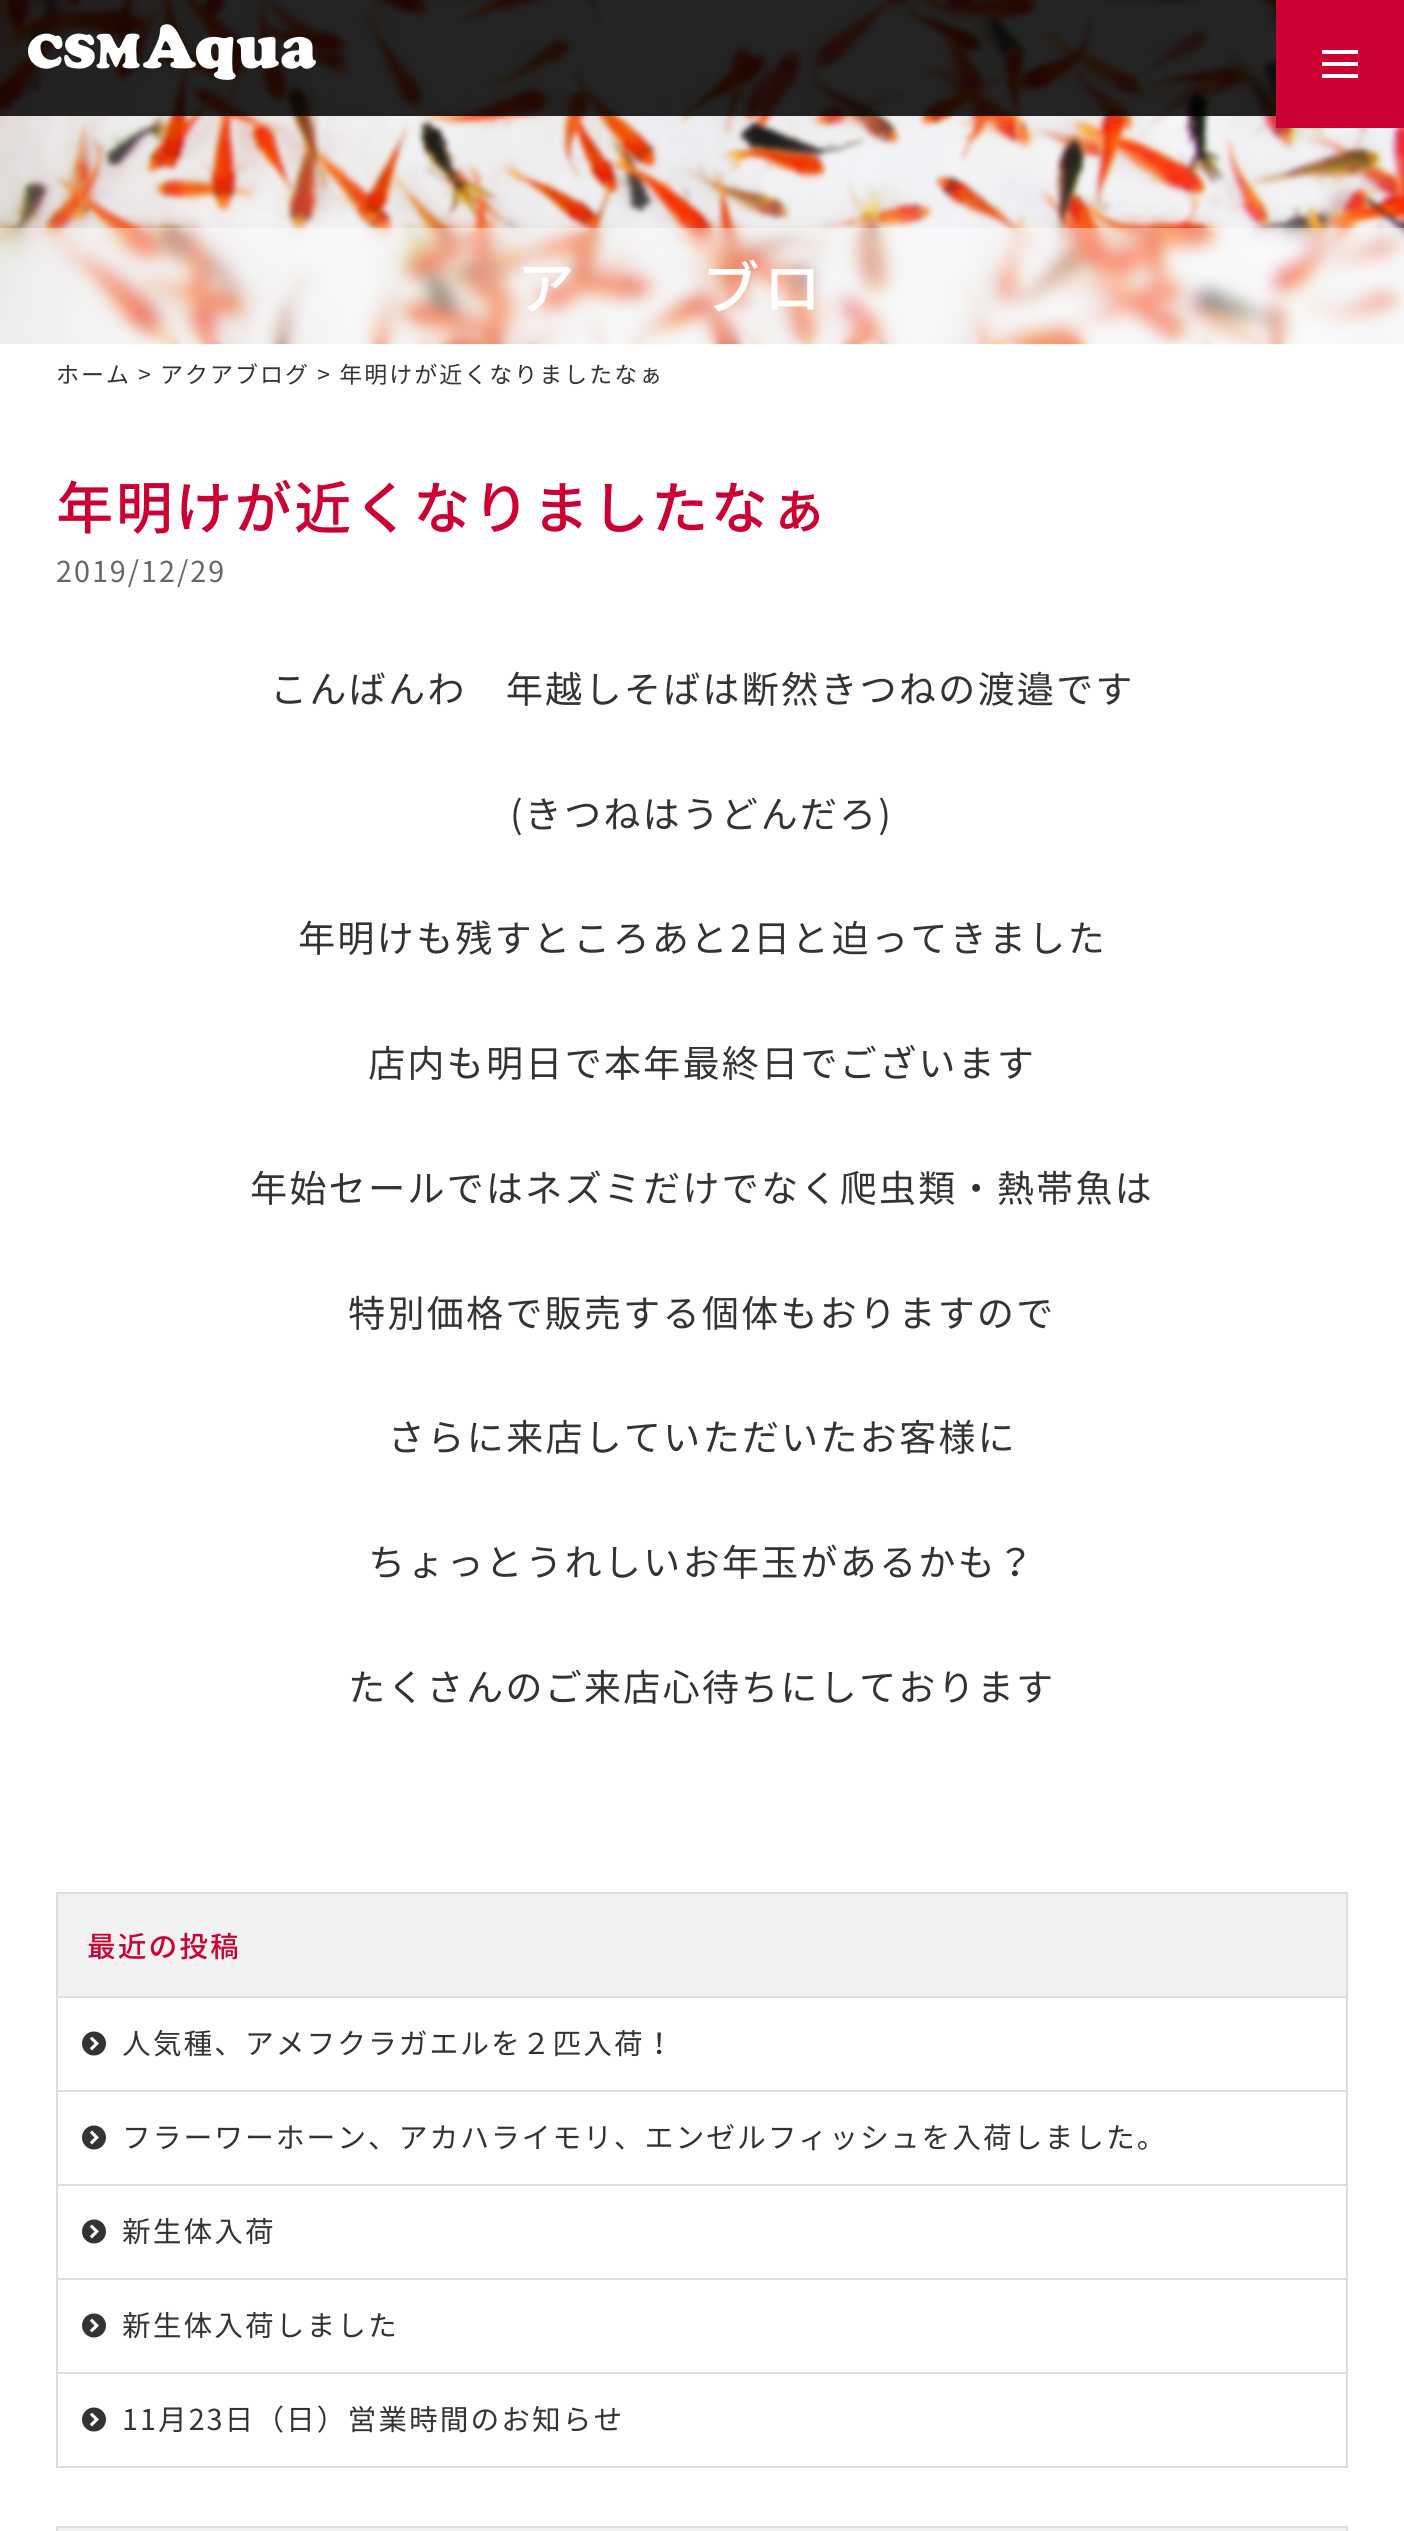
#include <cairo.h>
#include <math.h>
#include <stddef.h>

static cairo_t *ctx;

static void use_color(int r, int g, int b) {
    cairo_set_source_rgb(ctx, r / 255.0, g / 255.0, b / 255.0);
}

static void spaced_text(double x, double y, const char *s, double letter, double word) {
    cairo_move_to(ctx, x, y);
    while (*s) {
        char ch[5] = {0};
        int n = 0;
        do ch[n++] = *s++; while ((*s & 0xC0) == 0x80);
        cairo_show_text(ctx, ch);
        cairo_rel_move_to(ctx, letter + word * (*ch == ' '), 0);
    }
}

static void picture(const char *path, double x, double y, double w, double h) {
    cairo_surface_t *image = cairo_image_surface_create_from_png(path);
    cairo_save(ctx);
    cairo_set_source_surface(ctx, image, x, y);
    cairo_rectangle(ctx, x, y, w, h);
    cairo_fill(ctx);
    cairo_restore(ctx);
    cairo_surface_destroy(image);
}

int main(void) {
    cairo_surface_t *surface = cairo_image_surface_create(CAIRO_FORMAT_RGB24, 1404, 2531);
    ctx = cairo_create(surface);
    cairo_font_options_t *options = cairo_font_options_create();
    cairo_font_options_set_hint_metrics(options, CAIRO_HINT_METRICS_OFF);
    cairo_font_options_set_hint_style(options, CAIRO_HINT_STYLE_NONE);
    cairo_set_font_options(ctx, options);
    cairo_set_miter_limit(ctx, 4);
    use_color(255, 255, 255);
    cairo_paint(ctx);
    picture("img2.png", 0, 0, 1404, 344);
    use_color(204, 0, 51);
    cairo_rectangle(ctx, 1276, 0, 128, 128);
    cairo_fill(ctx);
    use_color(255, 255, 255);
    cairo_rectangle(ctx, 1322, 62, 36, 4);
    cairo_fill(ctx);
    cairo_rectangle(ctx, 1322, 50, 36, 4);
    cairo_fill(ctx);
    cairo_rectangle(ctx, 1322, 74, 36, 4);
    cairo_fill(ctx);
    cairo_set_source_rgba(ctx, 0, 0, 0, 0.85);
    cairo_rectangle(ctx, 0, 0, 1276, 116);
    cairo_fill(ctx);
    picture("img1.png", 28, 24, 288, 56);
    picture("img3.png", 0, 213, 1404, 131);
    cairo_set_source_rgba(ctx, 1, 1, 1, 0.4);
    cairo_rectangle(ctx, 0, 228, 1404, 116);
    cairo_fill(ctx);
    cairo_select_font_face(ctx, "Noto Sans JP Medium", CAIRO_FONT_SLANT_NORMAL, CAIRO_FONT_WEIGHT_NORMAL);
    cairo_set_font_size(ctx, 57.5);
    use_color(255, 255, 255);
    spaced_text(517, 309, "ア", 4, 0);
    spaced_text(702, 309, "ブロ", 4, 0);
    cairo_select_font_face(ctx, "Noto Sans JP", CAIRO_FONT_SLANT_NORMAL, CAIRO_FONT_WEIGHT_NORMAL);
    cairo_set_font_size(ctx, 23);
    use_color(51, 51, 51);
    spaced_text(56, 383, "ホーム > アクアブログ > 年明けが近くなりましたなぁ", 2, 0);
    cairo_select_font_face(ctx, "Noto Sans JP Medium", CAIRO_FONT_SLANT_NORMAL, CAIRO_FONT_WEIGHT_NORMAL);
    cairo_set_font_size(ctx, 57.5);
    use_color(204, 0, 51);
    spaced_text(56, 529, "年明けが近くなりましたなぁ", 2, 0);
    cairo_select_font_face(ctx, "Noto Sans JP", CAIRO_FONT_SLANT_NORMAL, CAIRO_FONT_WEIGHT_NORMAL);
    cairo_set_font_size(ctx, 28.75);
    use_color(102, 102, 102);
    spaced_text(56, 582, "2019/12/29", 2, 0);
    cairo_set_font_size(ctx, 37.3);
    use_color(51, 51, 51);
    spaced_text(270, 703, "こんばんわ　年越しそばは断然きつねの渡邉です", 2, 0);
    spaced_text(510, 828, "(きつねはうどんだろ)", 2, 0);
    spaced_text(298, 952, "年明けも残すところあと2日と迫ってきました", 2, 0);
    spaced_text(368, 1077, "店内も明日で本年最終日でございます", 2, 0);
    spaced_text(250, 1202, "年始セールではネズミだけでなく爬虫類・熱帯魚は", 2, 0);
    spaced_text(348, 1327, "特別価格で販売する個体もおりますので", 2, 0);
    spaced_text(388, 1451, "さらに来店していただいたお客様に", 2, 0);
    spaced_text(368, 1576, "ちょっとうれしいお年玉があるかも？", 2, 0);
    spaced_text(348, 1701, "たくさんのご来店心待ちにしております", 2, 0);
    use_color(242, 242, 242);
    cairo_rectangle(ctx, 57, 1893, 1290, 104);
    cairo_fill_preserve(ctx);
    use_color(221, 221, 221);
    cairo_stroke(ctx);
    cairo_select_font_face(ctx, "Noto Sans JP Medium", CAIRO_FONT_SLANT_NORMAL, CAIRO_FONT_WEIGHT_NORMAL);
    cairo_set_font_size(ctx, 28.75);
    use_color(204, 0, 51);
    spaced_text(87, 1957, "最近の投稿", 2, 0);
    use_color(221, 221, 221);
    cairo_rectangle(ctx, 1346, 1998, 2, 470);
    cairo_fill(ctx);
    cairo_rectangle(ctx, 56, 2090, 1292, 2);
    cairo_fill(ctx);
    cairo_rectangle(ctx, 56, 1998, 2, 94);
    cairo_fill(ctx);
    picture("img4.png", 82, 2031, 24, 25);
    cairo_select_font_face(ctx, "Noto Sans JP", CAIRO_FONT_SLANT_NORMAL, CAIRO_FONT_WEIGHT_NORMAL);
    use_color(51, 51, 51);
    spaced_text(122, 2054, "人気種、アメフクラガエルを２匹入荷！", 2, 0);
    use_color(221, 221, 221);
    cairo_rectangle(ctx, 56, 2184, 1292, 2);
    cairo_fill(ctx);
    cairo_rectangle(ctx, 56, 2092, 2, 94);
    cairo_fill(ctx);
    picture("img4.png", 82, 2125, 24, 25);
    use_color(51, 51, 51);
    spaced_text(122, 2148, "フラーワーホーン、アカハライモリ、エンゼルフィッシュを入荷しました。", 2, 0);
    use_color(221, 221, 221);
    cairo_rectangle(ctx, 56, 2278, 1292, 2);
    cairo_fill(ctx);
    cairo_rectangle(ctx, 56, 2186, 2, 94);
    cairo_fill(ctx);
    picture("img4.png", 82, 2219, 24, 25);
    use_color(51, 51, 51);
    spaced_text(122, 2242, "新生体入荷", 2, 0);
    use_color(221, 221, 221);
    cairo_rectangle(ctx, 56, 2372, 1292, 2);
    cairo_fill(ctx);
    cairo_rectangle(ctx, 56, 2280, 2, 94);
    cairo_fill(ctx);
    picture("img4.png", 82, 2313, 24, 25);
    use_color(51, 51, 51);
    spaced_text(122, 2336, "新生体入荷しました", 2, 0);
    use_color(221, 221, 221);
    cairo_rectangle(ctx, 56, 2466, 1292, 2);
    cairo_fill(ctx);
    cairo_rectangle(ctx, 56, 2374, 2, 94);
    cairo_fill(ctx);
    picture("img4.png", 82, 2407, 24, 25);
    use_color(51, 51, 51);
    spaced_text(122, 2430, "11月23日（日）営業時間のお知らせ", 2, 0);
    use_color(242, 242, 242);
    cairo_rectangle(ctx, 57, 2527, 1290, 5);
    cairo_fill_preserve(ctx);
    use_color(221, 221, 221);
    cairo_stroke(ctx);
    cairo_surface_write_to_png(surface, "result.png");
    cairo_font_options_destroy(options);
    cairo_destroy(ctx);
    cairo_surface_destroy(surface);
    return 0;
}
